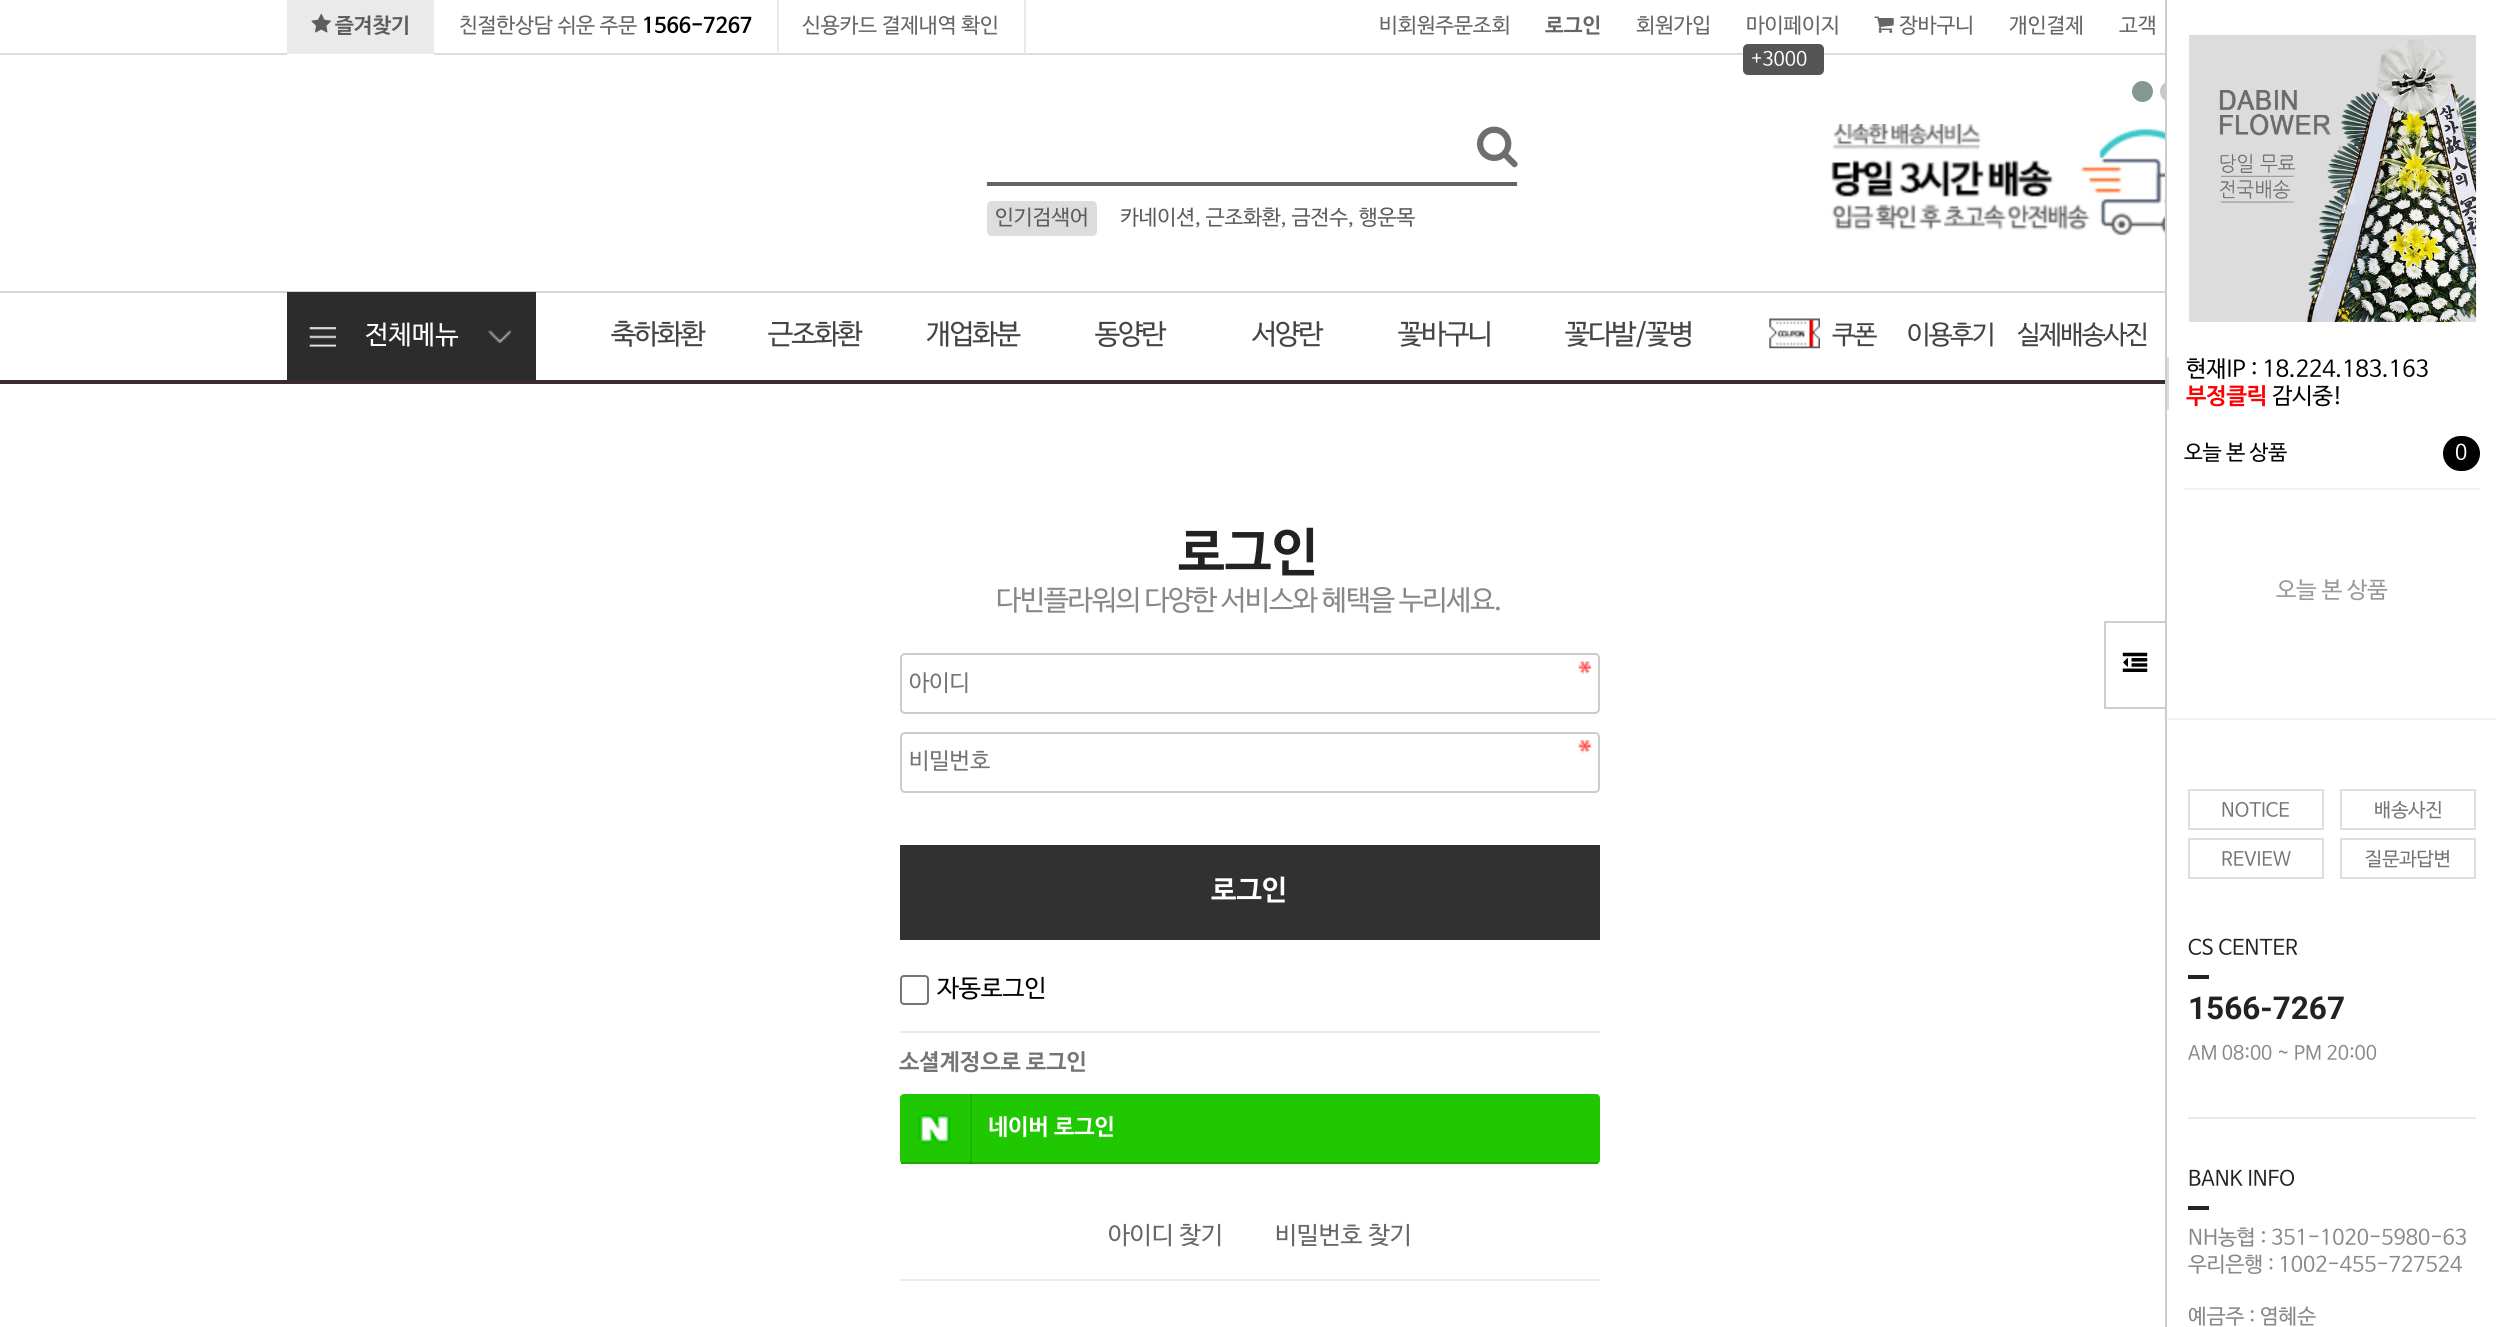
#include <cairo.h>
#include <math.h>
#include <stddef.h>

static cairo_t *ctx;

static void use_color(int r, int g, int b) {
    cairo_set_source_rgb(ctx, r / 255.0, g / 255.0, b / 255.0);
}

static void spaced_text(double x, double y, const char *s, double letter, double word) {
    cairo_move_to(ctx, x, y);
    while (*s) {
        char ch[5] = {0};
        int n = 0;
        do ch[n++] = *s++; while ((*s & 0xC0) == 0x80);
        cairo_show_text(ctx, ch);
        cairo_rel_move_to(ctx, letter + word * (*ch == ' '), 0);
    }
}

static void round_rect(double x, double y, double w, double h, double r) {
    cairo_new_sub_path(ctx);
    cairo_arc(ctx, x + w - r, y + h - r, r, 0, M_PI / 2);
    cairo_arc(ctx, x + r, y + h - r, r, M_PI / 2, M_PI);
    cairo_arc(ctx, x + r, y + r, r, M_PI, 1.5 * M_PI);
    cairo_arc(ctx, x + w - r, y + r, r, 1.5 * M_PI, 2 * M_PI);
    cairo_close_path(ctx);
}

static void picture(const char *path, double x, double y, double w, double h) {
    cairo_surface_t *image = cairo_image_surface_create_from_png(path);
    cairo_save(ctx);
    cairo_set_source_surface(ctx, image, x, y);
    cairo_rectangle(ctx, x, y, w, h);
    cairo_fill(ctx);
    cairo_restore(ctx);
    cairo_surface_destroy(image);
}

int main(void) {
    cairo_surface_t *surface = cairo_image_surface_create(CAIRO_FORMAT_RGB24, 2496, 1327);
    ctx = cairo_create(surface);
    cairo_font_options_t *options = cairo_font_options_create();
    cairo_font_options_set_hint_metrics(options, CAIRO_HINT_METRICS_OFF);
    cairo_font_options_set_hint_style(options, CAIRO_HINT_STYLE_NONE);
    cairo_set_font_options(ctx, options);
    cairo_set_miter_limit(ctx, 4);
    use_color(255, 255, 255);
    cairo_paint(ctx);
    use_color(221, 221, 221);
    cairo_rectangle(ctx, 0, 53, 2165, 2);
    cairo_fill(ctx);
    use_color(234, 234, 234);
    cairo_rectangle(ctx, 287, 0, 147, 54);
    cairo_fill(ctx);
    use_color(255, 255, 255);
    cairo_rectangle(ctx, 287, 54, 147, 1);
    cairo_fill(ctx);
    picture("img1.png", 311, 13, 20, 20);
    cairo_select_font_face(ctx, "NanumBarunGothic", CAIRO_FONT_SLANT_NORMAL, CAIRO_FONT_WEIGHT_BOLD);
    cairo_set_font_size(ctx, 21);
    use_color(93, 93, 93);
    cairo_move_to(ctx, 335, 32);
    cairo_show_text(ctx, "즐겨찾기");
    use_color(233, 233, 233);
    cairo_rectangle(ctx, 777, 0, 2, 54);
    cairo_fill(ctx);
    cairo_select_font_face(ctx, "NanumBarunGothic", CAIRO_FONT_SLANT_NORMAL, CAIRO_FONT_WEIGHT_NORMAL);
    use_color(102, 102, 102);
    cairo_move_to(ctx, 459, 32);
    cairo_show_text(ctx, "친절한상담 쉬운 주문");
    cairo_select_font_face(ctx, "NanumBarunGothic", CAIRO_FONT_SLANT_NORMAL, CAIRO_FONT_WEIGHT_BOLD);
    use_color(0, 0, 0);
    cairo_move_to(ctx, 642, 32);
    cairo_show_text(ctx, "1566-7267");
    use_color(233, 233, 233);
    cairo_rectangle(ctx, 1024, 0, 2, 54);
    cairo_fill(ctx);
    cairo_select_font_face(ctx, "NanumBarunGothic", CAIRO_FONT_SLANT_NORMAL, CAIRO_FONT_WEIGHT_NORMAL);
    use_color(102, 102, 102);
    cairo_move_to(ctx, 802, 32);
    cairo_show_text(ctx, "신용카드 결제내역 확인");
    cairo_move_to(ctx, 1379, 32);
    cairo_show_text(ctx, "비회원주문조회");
    cairo_select_font_face(ctx, "NanumBarunGothic", CAIRO_FONT_SLANT_NORMAL, CAIRO_FONT_WEIGHT_BOLD);
    cairo_move_to(ctx, 1545, 32);
    cairo_show_text(ctx, "로그인");
    cairo_select_font_face(ctx, "NanumBarunGothic", CAIRO_FONT_SLANT_NORMAL, CAIRO_FONT_WEIGHT_NORMAL);
    cairo_move_to(ctx, 1636, 32);
    cairo_show_text(ctx, "회원가입");
    use_color(85, 85, 85);
    round_rect(1743, 44, 81, 31, 5);
    cairo_fill(ctx);
    cairo_set_font_size(ctx, 19.25);
    use_color(255, 255, 255);
    cairo_move_to(ctx, 1751, 65);
    cairo_show_text(ctx, "+3000");
    cairo_set_font_size(ctx, 21);
    use_color(102, 102, 102);
    cairo_move_to(ctx, 1746, 32);
    cairo_show_text(ctx, "마이페이지");
    picture("img2.png", 1874, 16, 20, 17);
    cairo_move_to(ctx, 1899, 32);
    cairo_show_text(ctx, "장바구니");
    cairo_move_to(ctx, 2009, 32);
    cairo_show_text(ctx, "개인결제");
    cairo_move_to(ctx, 2119, 32);
    cairo_show_text(ctx, "고객");
    picture("img3.png", 1477, 126, 41, 42);
    use_color(100, 100, 100);
    cairo_rectangle(ctx, 987, 182, 530, 4);
    cairo_fill(ctx);
    use_color(221, 221, 221);
    round_rect(987, 201, 110, 35, 5);
    cairo_fill(ctx);
    use_color(93, 93, 93);
    cairo_move_to(ctx, 995, 224);
    cairo_show_text(ctx, "인기검색어");
    cairo_move_to(ctx, 1120, 224);
    cairo_show_text(ctx, "카네이션, 근조화환, 금전수, 행운목");
    use_color(134, 151, 145);
    cairo_new_path(ctx);
    cairo_arc(ctx, 2142.5, 91.5, 10.5, 0, 2 * M_PI);
    cairo_fill(ctx);
    use_color(195, 203, 200);
    cairo_arc(ctx, 2170.5, 91.5, 10.5, 0, 2 * M_PI);
    cairo_fill(ctx);
    picture("img4.png", 1831, 124, 334, 112);
    use_color(215, 215, 215);
    cairo_rectangle(ctx, 0, 291, 2165, 2);
    cairo_fill(ctx);
    use_color(60, 44, 44);
    cairo_rectangle(ctx, 0, 380, 2165, 4);
    cairo_fill(ctx);
    use_color(44, 44, 44);
    cairo_rectangle(ctx, 287, 292, 249, 88);
    cairo_fill(ctx);
    picture("img5.png", 309, 327, 27, 20);
    cairo_set_font_size(ctx, 26.25);
    use_color(255, 255, 255);
    cairo_move_to(ctx, 365, 343);
    cairo_show_text(ctx, "전체메뉴");
    picture("img6.png", 488, 330, 23, 13);
    cairo_set_font_size(ctx, 28);
    use_color(68, 68, 68);
    spaced_text(611, 343, "축하화환", -1.75, 0);
    spaced_text(768, 343, "근조화환", -1.75, 0);
    spaced_text(926, 343, "개업화분", -1.75, 0);
    spaced_text(1095, 343, "동양란", -1.75, 0);
    spaced_text(1252, 343, "서양란", -1.75, 0);
    spaced_text(1398, 343, "꽃바구니", -1.75, 0);
    spaced_text(1565, 343, "꽃다발/꽃병", -1.75, 0);
    picture("img7.png", 1769, 318, 51, 31);
    cairo_set_font_size(ctx, 26.25);
    spaced_text(1832, 343, "쿠폰", -1.75, 0);
    spaced_text(1907, 343, "이용후기", -1.75, 0);
    spaced_text(2017, 343, "실제배송사진", -1.75, 0);
    cairo_select_font_face(ctx, "NanumBarunGothic", CAIRO_FONT_SLANT_NORMAL, CAIRO_FONT_WEIGHT_BOLD);
    cairo_set_font_size(ctx, 52.5);
    use_color(34, 34, 34);
    cairo_move_to(ctx, 1178, 569);
    cairo_show_text(ctx, "로그인");
    cairo_select_font_face(ctx, "NanumBarunGothic", CAIRO_FONT_SLANT_NORMAL, CAIRO_FONT_WEIGHT_NORMAL);
    cairo_set_font_size(ctx, 28);
    use_color(136, 136, 136);
    spaced_text(996, 609, "다빈플라워의 다양한 서비스와 혜택을 누리세요.", -1.1, 0);
    picture("img8.png", 1578, 661, 14, 14);
    round_rect(901, 654, 698, 59, 4);
    use_color(204, 204, 204);
    cairo_stroke(ctx);
    cairo_set_font_size(ctx, 22.75);
    use_color(117, 117, 117);
    cairo_move_to(ctx, 909, 690);
    cairo_show_text(ctx, "아이디");
    picture("img9.png", 1578, 739, 14, 14);
    round_rect(901, 733, 698, 59, 4);
    use_color(204, 204, 204);
    cairo_stroke(ctx);
    use_color(117, 117, 117);
    cairo_move_to(ctx, 909, 768);
    cairo_show_text(ctx, "비밀번호");
    use_color(49, 49, 49);
    cairo_rectangle(ctx, 900, 845, 700, 95);
    cairo_fill(ctx);
    cairo_select_font_face(ctx, "NanumBarunGothic", CAIRO_FONT_SLANT_NORMAL, CAIRO_FONT_WEIGHT_BOLD);
    cairo_set_font_size(ctx, 28.5);
    use_color(255, 255, 255);
    cairo_move_to(ctx, 1211, 899);
    cairo_show_text(ctx, "로그인");
    round_rect(901, 976, 27, 28, 3);
    use_color(118, 118, 118);
    cairo_stroke(ctx);
    cairo_select_font_face(ctx, "NanumBarunGothic", CAIRO_FONT_SLANT_NORMAL, CAIRO_FONT_WEIGHT_NORMAL);
    cairo_set_font_size(ctx, 24.5);
    use_color(0, 0, 0);
    cairo_move_to(ctx, 937, 996);
    cairo_show_text(ctx, "자동로그인");
    use_color(237, 234, 234);
    cairo_rectangle(ctx, 900, 1031, 700, 2);
    cairo_fill(ctx);
    cairo_select_font_face(ctx, "NanumBarunGothic", CAIRO_FONT_SLANT_NORMAL, CAIRO_FONT_WEIGHT_BOLD);
    cairo_set_font_size(ctx, 22.75);
    use_color(117, 117, 117);
    cairo_move_to(ctx, 899, 1069);
    cairo_show_text(ctx, "소셜계정으로 로그인");
    use_color(31, 200, 0);
    round_rect(900, 1094, 700, 70, 4);
    cairo_fill(ctx);
    use_color(28, 180, 0);
    cairo_rectangle(ctx, 970, 1094, 2, 70);
    cairo_fill(ctx);
    picture("img10.png", 918, 1114, 33, 30);
    use_color(30, 165, 5);
    cairo_rectangle(ctx, 901, 1162, 697, 2);
    cairo_fill(ctx);
    use_color(27, 149, 5);
    cairo_rectangle(ctx, 970, 1162, 2, 2);
    cairo_fill(ctx);
    use_color(255, 255, 255);
    cairo_move_to(ctx, 988, 1134);
    cairo_show_text(ctx, "네이버 로그인");
    use_color(237, 237, 237);
    cairo_rectangle(ctx, 900, 1279, 700, 2);
    cairo_fill(ctx);
    cairo_select_font_face(ctx, "NanumBarunGothic", CAIRO_FONT_SLANT_NORMAL, CAIRO_FONT_WEIGHT_NORMAL);
    cairo_set_font_size(ctx, 24.5);
    use_color(102, 102, 102);
    cairo_move_to(ctx, 1108, 1243);
    cairo_show_text(ctx, "아이디 찾기");
    cairo_move_to(ctx, 1275, 1243);
    cairo_show_text(ctx, "비밀번호 찾기");
    use_color(255, 255, 255);
    cairo_rectangle(ctx, 2167, 81, 14, 21);
    cairo_fill(ctx);
    use_color(205, 205, 205);
    cairo_rectangle(ctx, 2104, 621, 61, 2);
    cairo_fill(ctx);
    cairo_rectangle(ctx, 2104, 707, 61, 2);
    cairo_fill(ctx);
    cairo_rectangle(ctx, 2104, 621, 2, 88);
    cairo_fill(ctx);
    picture("img11.png", 2122, 652, 26, 20);
    cairo_rectangle(ctx, 2165, 0, 2, 1327);
    cairo_fill(ctx);
    picture("img12.png", 2189, 35, 288, 287);
    use_color(221, 221, 221);
    cairo_rectangle(ctx, 2167, 357, 2, 53);
    cairo_fill(ctx);
    cairo_set_font_size(ctx, 22.75);
    use_color(0, 0, 0);
    cairo_move_to(ctx, 2186, 376);
    cairo_show_text(ctx, "현재IP : 18.224.183.163");
    cairo_select_font_face(ctx, "NanumBarunGothic", CAIRO_FONT_SLANT_NORMAL, CAIRO_FONT_WEIGHT_BOLD);
    use_color(255, 0, 0);
    cairo_move_to(ctx, 2186, 403);
    cairo_show_text(ctx, "부정클릭");
    cairo_select_font_face(ctx, "NanumBarunGothic", CAIRO_FONT_SLANT_NORMAL, CAIRO_FONT_WEIGHT_NORMAL);
    use_color(0, 0, 0);
    cairo_move_to(ctx, 2272, 403);
    cairo_show_text(ctx, "감시중!");
    use_color(243, 243, 243);
    cairo_rectangle(ctx, 2167, 718, 329, 2);
    cairo_fill(ctx);
    cairo_set_font_size(ctx, 21);
    use_color(0, 0, 0);
    cairo_move_to(ctx, 2184, 459);
    cairo_show_text(ctx, "오늘 본 상품");
    round_rect(2443, 436, 37, 35, 17.5);
    cairo_fill(ctx);
    use_color(255, 255, 255);
    cairo_move_to(ctx, 2455, 459);
    cairo_show_text(ctx, "0");
    use_color(243, 243, 243);
    cairo_rectangle(ctx, 2184, 488, 296, 2);
    cairo_fill(ctx);
    cairo_set_font_size(ctx, 22.75);
    use_color(153, 153, 153);
    cairo_move_to(ctx, 2276, 597);
    cairo_show_text(ctx, "오늘 본 상품");
    cairo_rectangle(ctx, 2189, 790, 134, 39);
    use_color(222, 222, 222);
    cairo_stroke(ctx);
    cairo_set_font_size(ctx, 19.25);
    use_color(117, 117, 117);
    cairo_move_to(ctx, 2221, 816);
    cairo_show_text(ctx, "NOTICE");
    cairo_rectangle(ctx, 2341, 790, 134, 39);
    use_color(222, 222, 222);
    cairo_stroke(ctx);
    use_color(117, 117, 117);
    cairo_move_to(ctx, 2374, 816);
    cairo_show_text(ctx, "배송사진");
    cairo_rectangle(ctx, 2189, 839, 134, 39);
    use_color(222, 222, 222);
    cairo_stroke(ctx);
    use_color(117, 117, 117);
    cairo_move_to(ctx, 2221, 865);
    cairo_show_text(ctx, "REVIEW");
    cairo_rectangle(ctx, 2341, 839, 134, 39);
    use_color(222, 222, 222);
    cairo_stroke(ctx);
    use_color(117, 117, 117);
    cairo_move_to(ctx, 2365, 865);
    cairo_show_text(ctx, "질문과답변");
    use_color(233, 233, 233);
    cairo_rectangle(ctx, 2188, 1117, 288, 2);
    cairo_fill(ctx);
    cairo_set_font_size(ctx, 21);
    use_color(34, 34, 34);
    cairo_move_to(ctx, 2188, 954);
    cairo_show_text(ctx, "CS CENTER");
    cairo_rectangle(ctx, 2188, 975, 21, 4);
    cairo_fill(ctx);
    cairo_select_font_face(ctx, "Roboto", CAIRO_FONT_SLANT_NORMAL, CAIRO_FONT_WEIGHT_BOLD);
    cairo_set_font_size(ctx, 31.5);
    cairo_move_to(ctx, 2188, 1019);
    cairo_show_text(ctx, "1566-7267");
    cairo_select_font_face(ctx, "NanumBarunGothic", CAIRO_FONT_SLANT_NORMAL, CAIRO_FONT_WEIGHT_NORMAL);
    cairo_set_font_size(ctx, 19.25);
    use_color(136, 136, 136);
    cairo_move_to(ctx, 2188, 1059);
    cairo_show_text(ctx, "AM 08:00 ~ PM 20:00");
    cairo_set_font_size(ctx, 21);
    use_color(34, 34, 34);
    cairo_move_to(ctx, 2188, 1185);
    cairo_show_text(ctx, "BANK INFO");
    cairo_rectangle(ctx, 2188, 1206, 21, 4);
    cairo_fill(ctx);
    use_color(136, 136, 136);
    cairo_move_to(ctx, 2188, 1244);
    cairo_show_text(ctx, "NH농협 : 351-1020-5980-63");
    cairo_move_to(ctx, 2188, 1271);
    cairo_show_text(ctx, "우리은행 : 1002-455-727524");
    cairo_move_to(ctx, 2188, 1323);
    cairo_show_text(ctx, "예금주 : 염혜순");
    cairo_surface_write_to_png(surface, "result.png");
    cairo_font_options_destroy(options);
    cairo_destroy(ctx);
    cairo_surface_destroy(surface);
    return 0;
}
